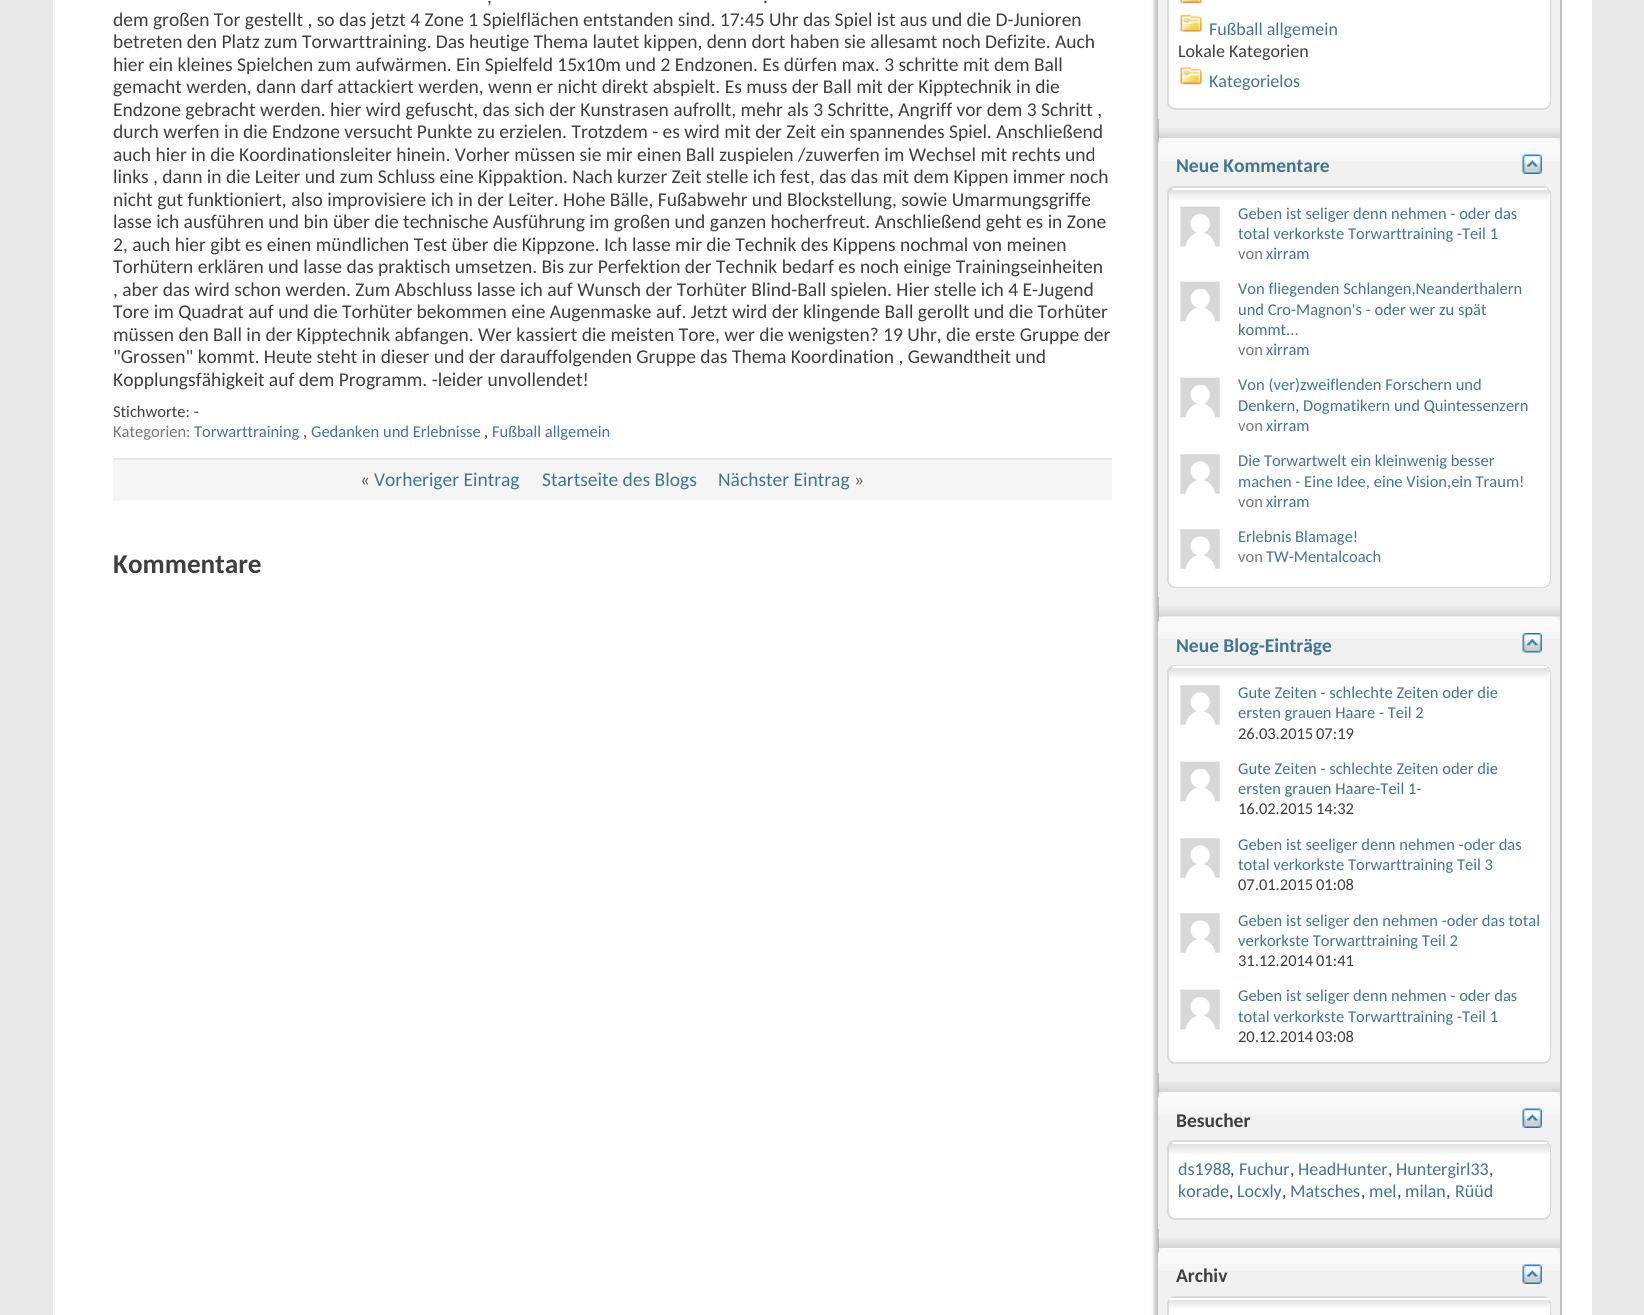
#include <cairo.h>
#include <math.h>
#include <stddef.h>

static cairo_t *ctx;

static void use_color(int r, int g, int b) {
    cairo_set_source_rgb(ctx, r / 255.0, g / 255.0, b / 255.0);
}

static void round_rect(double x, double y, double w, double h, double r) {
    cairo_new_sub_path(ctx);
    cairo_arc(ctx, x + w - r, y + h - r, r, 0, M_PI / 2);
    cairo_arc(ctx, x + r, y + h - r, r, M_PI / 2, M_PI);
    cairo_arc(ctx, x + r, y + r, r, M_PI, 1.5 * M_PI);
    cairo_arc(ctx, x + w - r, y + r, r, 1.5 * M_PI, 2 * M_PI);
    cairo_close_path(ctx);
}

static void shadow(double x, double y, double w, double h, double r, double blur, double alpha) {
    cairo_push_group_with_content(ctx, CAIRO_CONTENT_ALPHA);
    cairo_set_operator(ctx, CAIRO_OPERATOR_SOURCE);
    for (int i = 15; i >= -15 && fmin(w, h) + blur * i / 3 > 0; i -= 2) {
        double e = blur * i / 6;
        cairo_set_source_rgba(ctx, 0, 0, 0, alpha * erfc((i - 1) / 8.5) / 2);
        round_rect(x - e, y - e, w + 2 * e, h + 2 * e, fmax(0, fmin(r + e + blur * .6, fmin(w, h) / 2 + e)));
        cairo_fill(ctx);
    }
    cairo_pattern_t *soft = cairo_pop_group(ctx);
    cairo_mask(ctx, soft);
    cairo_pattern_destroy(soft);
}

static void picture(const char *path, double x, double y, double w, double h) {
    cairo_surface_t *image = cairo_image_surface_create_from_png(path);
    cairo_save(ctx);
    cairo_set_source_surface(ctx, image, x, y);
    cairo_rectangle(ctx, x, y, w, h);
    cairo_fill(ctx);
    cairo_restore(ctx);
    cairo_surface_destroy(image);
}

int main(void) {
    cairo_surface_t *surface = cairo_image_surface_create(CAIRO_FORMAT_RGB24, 1644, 1315);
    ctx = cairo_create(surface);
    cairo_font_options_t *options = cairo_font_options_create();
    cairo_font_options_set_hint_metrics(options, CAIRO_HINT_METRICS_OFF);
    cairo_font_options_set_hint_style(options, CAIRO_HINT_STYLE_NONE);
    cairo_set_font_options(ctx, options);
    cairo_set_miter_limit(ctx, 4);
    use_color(233, 233, 233);
    cairo_paint(ctx);
    use_color(255, 255, 255);
    cairo_rectangle(ctx, 53, 0, 1539, 1315);
    cairo_fill(ctx);
    cairo_select_font_face(ctx, "Carlito", CAIRO_FONT_SLANT_NORMAL, CAIRO_FONT_WEIGHT_NORMAL);
    cairo_set_font_size(ctx, 19.5);
    use_color(62, 62, 62);
    cairo_move_to(ctx, 487, 3);
    cairo_show_text(ctx, ",");
    cairo_move_to(ctx, 763, 3);
    cairo_show_text(ctx, ".");
    cairo_move_to(ctx, 113, 26);
    cairo_show_text(ctx, "dem großen Tor gestellt , so das jetzt 4 Zone 1 Spielflächen entstanden sind. 17:45 Uhr das Spiel ist aus und die D-Junioren");
    cairo_move_to(ctx, 113, 48);
    cairo_show_text(ctx, "betreten den Platz zum Torwarttraining. Das heutige Thema lautet kippen, denn dort haben sie allesamt noch Defizite. Auch");
    cairo_move_to(ctx, 113, 71);
    cairo_show_text(ctx, "hier ein kleines Spielchen zum aufwärmen. Ein Spielfeld 15x10m und 2 Endzonen. Es dürfen max. 3 schritte mit dem Ball");
    cairo_move_to(ctx, 113, 93);
    cairo_show_text(ctx, "gemacht werden, dann darf attackiert werden, wenn er nicht direkt abspielt. Es muss der Ball mit der Kipptechnik in die");
    cairo_move_to(ctx, 113, 116);
    cairo_show_text(ctx, "Endzone gebracht werden. hier wird gefuscht, das sich der Kunstrasen aufrollt, mehr als 3 Schritte, Angriff vor dem 3 Schritt ,");
    cairo_move_to(ctx, 113, 138);
    cairo_show_text(ctx, "durch werfen in die Endzone versucht Punkte zu erzielen. Trotzdem - es wird mit der Zeit ein spannendes Spiel. Anschließend");
    cairo_move_to(ctx, 113, 161);
    cairo_show_text(ctx, "auch hier in die Koordinationsleiter hinein. Vorher müssen sie mir einen Ball zuspielen /zuwerfen im Wechsel mit rechts und");
    cairo_move_to(ctx, 113, 183);
    cairo_show_text(ctx, "links , dann in die Leiter und zum Schluss eine Kippaktion. Nach kurzer Zeit stelle ich fest, das das mit dem Kippen immer noch");
    cairo_move_to(ctx, 113, 206);
    cairo_show_text(ctx, "nicht gut funktioniert, also improvisiere ich in der Leiter. Hohe Bälle, Fußabwehr und Blockstellung, sowie Umarmungsgriffe");
    cairo_move_to(ctx, 113, 228);
    cairo_show_text(ctx, "lasse ich ausführen und bin über die technische Ausführung im großen und ganzen hocherfreut. Anschließend geht es in Zone");
    cairo_move_to(ctx, 113, 251);
    cairo_show_text(ctx, "2, auch hier gibt es einen mündlichen Test über die Kippzone. Ich lasse mir die Technik des Kippens nochmal von meinen");
    cairo_move_to(ctx, 113, 273);
    cairo_show_text(ctx, "Torhütern erklären und lasse das praktisch umsetzen. Bis zur Perfektion der Technik bedarf es noch einige Trainingseinheiten");
    cairo_move_to(ctx, 113, 296);
    cairo_show_text(ctx, ", aber das wird schon werden. Zum Abschluss lasse ich auf Wunsch der Torhüter Blind-Ball spielen. Hier stelle ich 4 E-Jugend");
    cairo_move_to(ctx, 113, 318);
    cairo_show_text(ctx, "Tore im Quadrat auf und die Torhüter bekommen eine Augenmaske auf. Jetzt wird der klingende Ball gerollt und die Torhüter");
    cairo_move_to(ctx, 113, 341);
    cairo_show_text(ctx, "müssen den Ball in der Kipptechnik abfangen. Wer kassiert die meisten Tore, wer die wenigsten? 19 Uhr, die erste Gruppe der");
    cairo_move_to(ctx, 113, 363);
    cairo_show_text(ctx, "\"Grossen\" kommt. Heute steht in dieser und der darauffolgenden Gruppe das Thema Koordination , Gewandtheit und");
    cairo_move_to(ctx, 113, 386);
    cairo_show_text(ctx, "Kopplungsfähigkeit auf dem Programm. -leider unvollendet!");
    cairo_set_font_size(ctx, 16.5);
    cairo_move_to(ctx, 113, 417);
    cairo_show_text(ctx, "Stichworte: -");
    use_color(119, 119, 119);
    cairo_move_to(ctx, 113, 437);
    cairo_show_text(ctx, "Kategorien:");
    use_color(65, 115, 148);
    cairo_move_to(ctx, 194, 437);
    cairo_show_text(ctx, "Torwarttraining");
    use_color(62, 62, 62);
    cairo_move_to(ctx, 303, 437);
    cairo_show_text(ctx, ",");
    use_color(65, 115, 148);
    cairo_move_to(ctx, 311, 437);
    cairo_show_text(ctx, "Gedanken und Erlebnisse");
    use_color(62, 62, 62);
    cairo_move_to(ctx, 484, 437);
    cairo_show_text(ctx, ",");
    use_color(65, 115, 148);
    cairo_move_to(ctx, 492, 437);
    cairo_show_text(ctx, "Fußball allgemein");
    use_color(245, 245, 245);
    cairo_rectangle(ctx, 113, 460, 999, 41);
    cairo_fill(ctx);
    use_color(231, 231, 231);
    cairo_rectangle(ctx, 113, 458, 999, 2);
    cairo_fill(ctx);
    cairo_set_font_size(ctx, 19.5);
    use_color(93, 93, 93);
    cairo_move_to(ctx, 360, 486);
    cairo_show_text(ctx, "«");
    use_color(65, 115, 148);
    cairo_move_to(ctx, 374, 486);
    cairo_show_text(ctx, "Vorheriger Eintrag");
    cairo_move_to(ctx, 542, 486);
    cairo_show_text(ctx, "Startseite des Blogs");
    cairo_move_to(ctx, 718, 486);
    cairo_show_text(ctx, "Nächster Eintrag");
    use_color(93, 93, 93);
    cairo_move_to(ctx, 854, 486);
    cairo_show_text(ctx, "»");
    cairo_select_font_face(ctx, "Carlito", CAIRO_FONT_SLANT_NORMAL, CAIRO_FONT_WEIGHT_BOLD);
    cairo_set_font_size(ctx, 27.25);
    use_color(62, 62, 62);
    cairo_move_to(ctx, 113, 573);
    cairo_show_text(ctx, "Kommentare");
    use_color(200, 200, 200);
    shadow(1154, -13, 405, 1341, 8, 1.5, 1);
    use_color(241, 241, 241);
    cairo_rectangle(ctx, 1159, 119, 401, 1137);
    cairo_fill(ctx);
    cairo_rectangle(ctx, 1158, -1, 403, 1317);
    use_color(193, 193, 193);
    cairo_stroke(ctx);
    use_color(241, 241, 241);
    cairo_rectangle(ctx, 1158, 0, 402, 119);
    cairo_fill(ctx);
    use_color(255, 255, 255);
    round_rect(1168, -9, 382, 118, 7);
    cairo_fill_preserve(ctx);
    use_color(218, 218, 218);
    cairo_stroke(ctx);
    use_color(255, 255, 255);
    round_rect(1169, -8, 381, 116, 8);
    cairo_fill(ctx);
    picture("img1.png", 1180, 0, 22, 4);
    picture("img2.png", 1180, 14, 22, 18);
    cairo_select_font_face(ctx, "Carlito", CAIRO_FONT_SLANT_NORMAL, CAIRO_FONT_WEIGHT_NORMAL);
    cairo_set_font_size(ctx, 18);
    use_color(65, 115, 148);
    cairo_move_to(ctx, 1209, 35);
    cairo_show_text(ctx, "Fußball allgemein");
    use_color(62, 62, 62);
    cairo_move_to(ctx, 1178, 57);
    cairo_show_text(ctx, "Lokale Kategorien");
    picture("img3.png", 1180, 67, 22, 18);
    use_color(65, 115, 148);
    cairo_move_to(ctx, 1209, 87);
    cairo_show_text(ctx, "Kategorielos");
    picture("img4.png", 1158, 128, 402, 10);
    use_color(241, 241, 241);
    cairo_new_path(ctx);
    cairo_move_to(ctx, 1166, 138);
    cairo_line_to(ctx, 1552, 138);
    cairo_curve_to(ctx, 1556.5, 138, 1560, 141.5, 1560, 146);
    cairo_line_to(ctx, 1560, 597);
    cairo_line_to(ctx, 1158, 597);
    cairo_line_to(ctx, 1158, 146);
    cairo_curve_to(ctx, 1158, 141.5, 1161.5, 138, 1166, 138);
    cairo_close_path(ctx);
    cairo_fill(ctx);
    picture("img5.png", 1158, 138, 402, 23);
    cairo_select_font_face(ctx, "Carlito", CAIRO_FONT_SLANT_NORMAL, CAIRO_FONT_WEIGHT_BOLD);
    cairo_set_font_size(ctx, 19.5);
    use_color(65, 115, 148);
    cairo_move_to(ctx, 1176, 172);
    cairo_show_text(ctx, "Neue Kommentare");
    picture("img6.png", 1522, 154, 20, 20);
    use_color(255, 255, 255);
    round_rect(1168, 187, 382, 400, 7);
    cairo_fill_preserve(ctx);
    use_color(218, 218, 218);
    cairo_stroke(ctx);
    use_color(255, 255, 255);
    round_rect(1169, 188, 381, 399, 8);
    cairo_fill(ctx);
    picture("img7.png", 1169, 189, 380, 11);
    cairo_rectangle(ctx, 1173, 188, 374, 2);
    cairo_fill(ctx);
    picture("img8.png", 1180, 206, 40, 41);
    cairo_select_font_face(ctx, "Carlito", CAIRO_FONT_SLANT_NORMAL, CAIRO_FONT_WEIGHT_NORMAL);
    cairo_set_font_size(ctx, 16.5);
    use_color(65, 115, 148);
    cairo_move_to(ctx, 1238, 219);
    cairo_show_text(ctx, "Geben ist seliger denn nehmen - oder das");
    cairo_move_to(ctx, 1238, 239);
    cairo_show_text(ctx, "total verkorkste Torwarttraining -Teil 1");
    use_color(119, 119, 119);
    cairo_move_to(ctx, 1238, 259);
    cairo_show_text(ctx, "von");
    use_color(65, 115, 148);
    cairo_move_to(ctx, 1266, 259);
    cairo_show_text(ctx, "xirram");
    picture("img8.png", 1180, 281, 40, 41);
    cairo_move_to(ctx, 1238, 294);
    cairo_show_text(ctx, "Von fliegenden Schlangen,Neanderthalern");
    cairo_move_to(ctx, 1238, 315);
    cairo_show_text(ctx, "und Cro-Magnon's - oder wer zu spät");
    cairo_move_to(ctx, 1238, 335);
    cairo_show_text(ctx, "kommt...");
    use_color(119, 119, 119);
    cairo_move_to(ctx, 1238, 355);
    cairo_show_text(ctx, "von");
    use_color(65, 115, 148);
    cairo_move_to(ctx, 1266, 355);
    cairo_show_text(ctx, "xirram");
    picture("img8.png", 1180, 377, 40, 41);
    cairo_move_to(ctx, 1238, 390);
    cairo_show_text(ctx, "Von (ver)zweiflenden Forschern und");
    cairo_move_to(ctx, 1238, 411);
    cairo_show_text(ctx, "Denkern, Dogmatikern und Quintessenzern");
    use_color(119, 119, 119);
    cairo_move_to(ctx, 1238, 431);
    cairo_show_text(ctx, "von");
    use_color(65, 115, 148);
    cairo_move_to(ctx, 1266, 431);
    cairo_show_text(ctx, "xirram");
    picture("img9.png", 1180, 454, 40, 40);
    cairo_move_to(ctx, 1238, 466);
    cairo_show_text(ctx, "Die Torwartwelt ein kleinwenig besser");
    cairo_move_to(ctx, 1238, 487);
    cairo_show_text(ctx, "machen - Eine Idee, eine Vision,ein Traum!");
    use_color(119, 119, 119);
    cairo_move_to(ctx, 1238, 507);
    cairo_show_text(ctx, "von");
    use_color(65, 115, 148);
    cairo_move_to(ctx, 1266, 507);
    cairo_show_text(ctx, "xirram");
    picture("img9.png", 1180, 529, 40, 40);
    cairo_move_to(ctx, 1238, 542);
    cairo_show_text(ctx, "Erlebnis Blamage!");
    use_color(119, 119, 119);
    cairo_move_to(ctx, 1238, 562);
    cairo_show_text(ctx, "von");
    use_color(65, 115, 148);
    cairo_move_to(ctx, 1266, 562);
    cairo_show_text(ctx, "TW-Mentalcoach");
    picture("img10.png", 1158, 606, 402, 11);
    use_color(241, 241, 241);
    cairo_new_path(ctx);
    cairo_move_to(ctx, 1166, 617);
    cairo_line_to(ctx, 1552, 617);
    cairo_curve_to(ctx, 1556.5, 617, 1560, 620.5, 1560, 625);
    cairo_line_to(ctx, 1560, 1073);
    cairo_line_to(ctx, 1158, 1073);
    cairo_line_to(ctx, 1158, 625);
    cairo_curve_to(ctx, 1158, 620.5, 1161.5, 617, 1166, 617);
    cairo_close_path(ctx);
    cairo_fill(ctx);
    picture("img11.png", 1158, 616, 402, 23);
    cairo_select_font_face(ctx, "Carlito", CAIRO_FONT_SLANT_NORMAL, CAIRO_FONT_WEIGHT_BOLD);
    cairo_set_font_size(ctx, 19.5);
    use_color(65, 115, 148);
    cairo_move_to(ctx, 1176, 652);
    cairo_show_text(ctx, "Neue Blog-Einträge");
    picture("img12.png", 1522, 633, 20, 20);
    use_color(255, 255, 255);
    round_rect(1168, 666, 382, 397, 7);
    cairo_fill_preserve(ctx);
    use_color(218, 218, 218);
    cairo_stroke(ctx);
    use_color(255, 255, 255);
    round_rect(1169, 666, 381, 396, 8);
    cairo_fill(ctx);
    picture("img13.png", 1169, 667, 380, 11);
    cairo_rectangle(ctx, 1173, 666, 374, 2);
    cairo_fill(ctx);
    picture("img9.png", 1180, 685, 40, 40);
    cairo_select_font_face(ctx, "Carlito", CAIRO_FONT_SLANT_NORMAL, CAIRO_FONT_WEIGHT_NORMAL);
    cairo_set_font_size(ctx, 16.5);
    use_color(65, 115, 148);
    cairo_move_to(ctx, 1238, 698);
    cairo_show_text(ctx, "Gute Zeiten - schlechte Zeiten oder die");
    cairo_move_to(ctx, 1238, 718);
    cairo_show_text(ctx, "ersten grauen Haare - Teil 2");
    use_color(62, 62, 62);
    cairo_move_to(ctx, 1238, 739);
    cairo_show_text(ctx, "26.03.2015");
    cairo_move_to(ctx, 1316, 739);
    cairo_show_text(ctx, "07:19");
    picture("img8.png", 1180, 761, 40, 41);
    use_color(65, 115, 148);
    cairo_move_to(ctx, 1238, 774);
    cairo_show_text(ctx, "Gute Zeiten - schlechte Zeiten oder die");
    cairo_move_to(ctx, 1238, 794);
    cairo_show_text(ctx, "ersten grauen Haare-Teil 1-");
    use_color(62, 62, 62);
    cairo_move_to(ctx, 1238, 814);
    cairo_show_text(ctx, "16.02.2015");
    cairo_move_to(ctx, 1316, 814);
    cairo_show_text(ctx, "14:32");
    picture("img9.png", 1180, 838, 40, 40);
    use_color(65, 115, 148);
    cairo_move_to(ctx, 1238, 850);
    cairo_show_text(ctx, "Geben ist seeliger denn nehmen -oder das");
    cairo_move_to(ctx, 1238, 870);
    cairo_show_text(ctx, "total verkorkste Torwarttraining Teil 3");
    use_color(62, 62, 62);
    cairo_move_to(ctx, 1238, 890);
    cairo_show_text(ctx, "07.01.2015");
    cairo_move_to(ctx, 1316, 890);
    cairo_show_text(ctx, "01:08");
    picture("img9.png", 1180, 913, 40, 40);
    use_color(65, 115, 148);
    cairo_move_to(ctx, 1238, 926);
    cairo_show_text(ctx, "Geben ist seliger den nehmen -oder das total");
    cairo_move_to(ctx, 1238, 946);
    cairo_show_text(ctx, "verkorkste Torwarttraining Teil 2");
    use_color(62, 62, 62);
    cairo_move_to(ctx, 1238, 966);
    cairo_show_text(ctx, "31.12.2014");
    cairo_move_to(ctx, 1316, 966);
    cairo_show_text(ctx, "01:41");
    picture("img8.png", 1180, 989, 40, 41);
    use_color(65, 115, 148);
    cairo_move_to(ctx, 1238, 1001);
    cairo_show_text(ctx, "Geben ist seliger denn nehmen - oder das");
    cairo_move_to(ctx, 1238, 1022);
    cairo_show_text(ctx, "total verkorkste Torwarttraining -Teil 1");
    use_color(62, 62, 62);
    cairo_move_to(ctx, 1238, 1042);
    cairo_show_text(ctx, "20.12.2014");
    cairo_move_to(ctx, 1316, 1042);
    cairo_show_text(ctx, "03:08");
    picture("img14.png", 1158, 1082, 402, 10);
    use_color(241, 241, 241);
    cairo_new_path(ctx);
    cairo_move_to(ctx, 1166, 1092);
    cairo_line_to(ctx, 1552, 1092);
    cairo_curve_to(ctx, 1556.5, 1092, 1560, 1095.5, 1560, 1100);
    cairo_line_to(ctx, 1560, 1229);
    cairo_line_to(ctx, 1158, 1229);
    cairo_line_to(ctx, 1158, 1100);
    cairo_curve_to(ctx, 1158, 1095.5, 1161.5, 1092, 1166, 1092);
    cairo_close_path(ctx);
    cairo_fill(ctx);
    picture("img15.png", 1158, 1092, 402, 23);
    cairo_select_font_face(ctx, "Carlito", CAIRO_FONT_SLANT_NORMAL, CAIRO_FONT_WEIGHT_BOLD);
    cairo_set_font_size(ctx, 19.5);
    use_color(62, 62, 62);
    cairo_move_to(ctx, 1176, 1127);
    cairo_show_text(ctx, "Besucher");
    picture("img6.png", 1522, 1108, 20, 20);
    use_color(255, 255, 255);
    round_rect(1168, 1141, 382, 78, 7);
    cairo_fill_preserve(ctx);
    use_color(218, 218, 218);
    cairo_stroke(ctx);
    use_color(255, 255, 255);
    round_rect(1169, 1142, 381, 76, 8);
    cairo_fill(ctx);
    picture("img16.png", 1169, 1143, 380, 11);
    cairo_rectangle(ctx, 1173, 1142, 374, 2);
    cairo_fill(ctx);
    cairo_select_font_face(ctx, "Carlito", CAIRO_FONT_SLANT_NORMAL, CAIRO_FONT_WEIGHT_NORMAL);
    cairo_set_font_size(ctx, 18);
    use_color(65, 115, 148);
    cairo_move_to(ctx, 1178, 1175);
    cairo_show_text(ctx, "ds1988");
    use_color(62, 62, 62);
    cairo_move_to(ctx, 1230, 1175);
    cairo_show_text(ctx, ",");
    use_color(65, 115, 148);
    cairo_move_to(ctx, 1239, 1175);
    cairo_show_text(ctx, "Fuchur");
    use_color(62, 62, 62);
    cairo_move_to(ctx, 1290, 1175);
    cairo_show_text(ctx, ",");
    use_color(65, 115, 148);
    cairo_move_to(ctx, 1298, 1175);
    cairo_show_text(ctx, "HeadHunter");
    use_color(62, 62, 62);
    cairo_move_to(ctx, 1388, 1175);
    cairo_show_text(ctx, ",");
    use_color(65, 115, 148);
    cairo_move_to(ctx, 1396, 1175);
    cairo_show_text(ctx, "Huntergirl33");
    use_color(62, 62, 62);
    cairo_move_to(ctx, 1489, 1175);
    cairo_show_text(ctx, ",");
    use_color(65, 115, 148);
    cairo_move_to(ctx, 1178, 1197);
    cairo_show_text(ctx, "korade");
    use_color(62, 62, 62);
    cairo_move_to(ctx, 1229, 1197);
    cairo_show_text(ctx, ",");
    use_color(65, 115, 148);
    cairo_move_to(ctx, 1237, 1197);
    cairo_show_text(ctx, "Locxly");
    use_color(62, 62, 62);
    cairo_move_to(ctx, 1282, 1197);
    cairo_show_text(ctx, ",");
    use_color(65, 115, 148);
    cairo_move_to(ctx, 1290, 1197);
    cairo_show_text(ctx, "Matsches");
    use_color(62, 62, 62);
    cairo_move_to(ctx, 1361, 1197);
    cairo_show_text(ctx, ",");
    use_color(65, 115, 148);
    cairo_move_to(ctx, 1369, 1197);
    cairo_show_text(ctx, "mel");
    use_color(62, 62, 62);
    cairo_move_to(ctx, 1397, 1197);
    cairo_show_text(ctx, ",");
    use_color(65, 115, 148);
    cairo_move_to(ctx, 1405, 1197);
    cairo_show_text(ctx, "milan");
    use_color(62, 62, 62);
    cairo_move_to(ctx, 1446, 1197);
    cairo_show_text(ctx, ",");
    use_color(65, 115, 148);
    cairo_move_to(ctx, 1455, 1197);
    cairo_show_text(ctx, "Rüüd");
    picture("img17.png", 1158, 1238, 402, 10);
    use_color(241, 241, 241);
    cairo_new_path(ctx);
    cairo_move_to(ctx, 1166, 1248);
    cairo_line_to(ctx, 1552, 1248);
    cairo_curve_to(ctx, 1556.5, 1248, 1560, 1251.5, 1560, 1256);
    cairo_line_to(ctx, 1560, 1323);
    cairo_line_to(ctx, 1158, 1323);
    cairo_line_to(ctx, 1158, 1256);
    cairo_curve_to(ctx, 1158, 1251.5, 1161.5, 1248, 1166, 1248);
    cairo_close_path(ctx);
    cairo_fill(ctx);
    picture("img18.png", 1158, 1248, 402, 23);
    cairo_select_font_face(ctx, "Carlito", CAIRO_FONT_SLANT_NORMAL, CAIRO_FONT_WEIGHT_BOLD);
    cairo_set_font_size(ctx, 19.5);
    use_color(62, 62, 62);
    cairo_move_to(ctx, 1176, 1282);
    cairo_show_text(ctx, "Archiv");
    picture("img6.png", 1522, 1264, 20, 20);
    use_color(255, 255, 255);
    round_rect(1168, 1297, 382, 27, 7);
    cairo_fill_preserve(ctx);
    use_color(218, 218, 218);
    cairo_stroke(ctx);
    use_color(255, 255, 255);
    round_rect(1169, 1298, 381, 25, 8);
    cairo_fill(ctx);
    picture("img19.png", 1169, 1297, 380, 11);
    cairo_rectangle(ctx, 1169, 1298, 381, 2);
    cairo_fill(ctx);
    cairo_surface_write_to_png(surface, "result.png");
    cairo_font_options_destroy(options);
    cairo_destroy(ctx);
    cairo_surface_destroy(surface);
    return 0;
}
